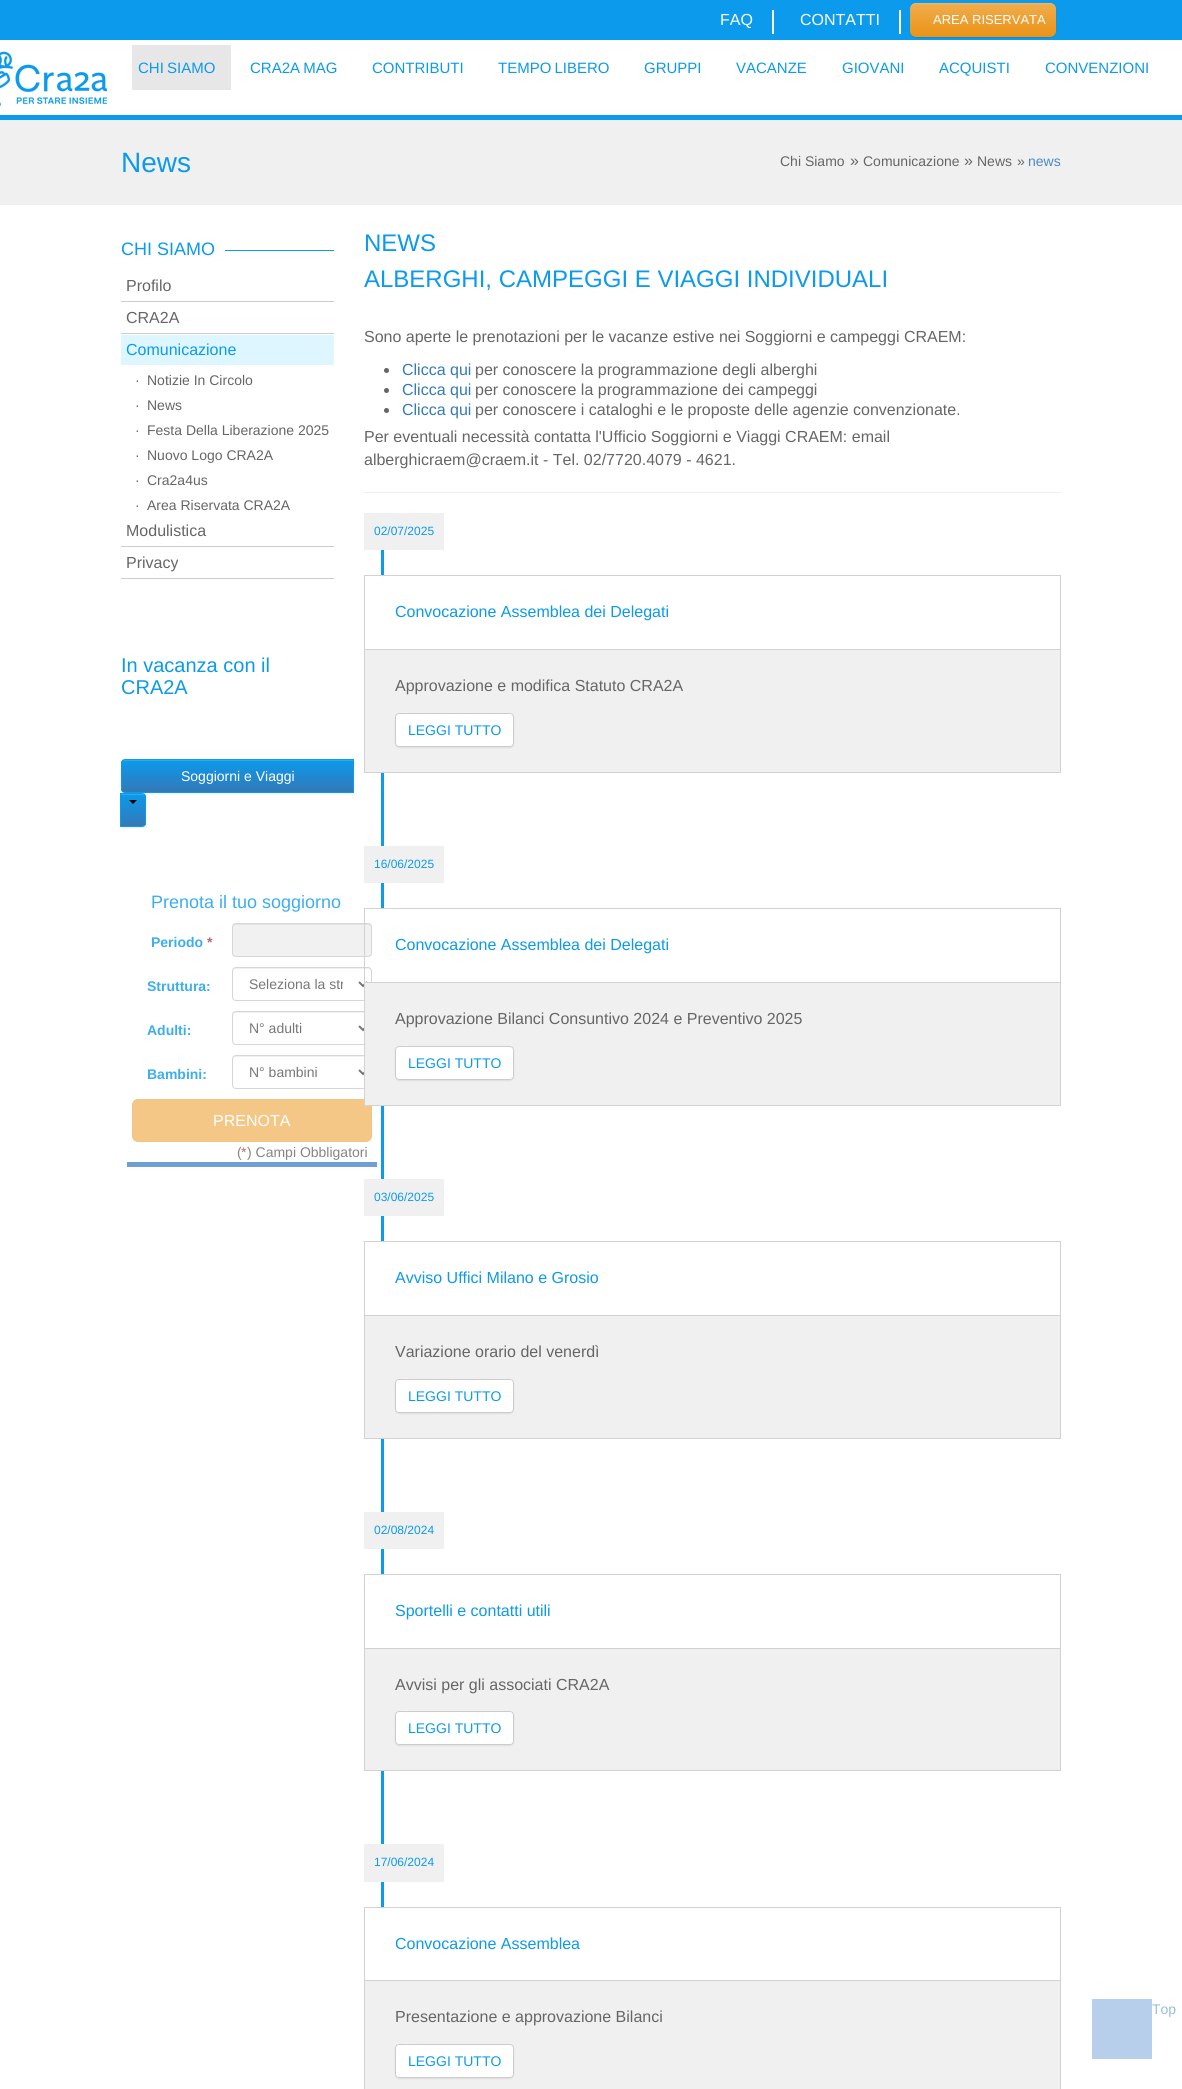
#include <cairo.h>
#include <math.h>
#include <stddef.h>

static cairo_t *ctx;

static void use_color(int r, int g, int b) {
    cairo_set_source_rgb(ctx, r / 255.0, g / 255.0, b / 255.0);
}

static void spaced_text(double x, double y, const char *s, double letter, double word) {
    cairo_move_to(ctx, x, y);
    while (*s) {
        char ch[5] = {0};
        int n = 0;
        do ch[n++] = *s++; while ((*s & 0xC0) == 0x80);
        cairo_show_text(ctx, ch);
        cairo_rel_move_to(ctx, letter + word * (*ch == ' '), 0);
    }
}

static void round_rect(double x, double y, double w, double h, double r) {
    cairo_new_sub_path(ctx);
    cairo_arc(ctx, x + w - r, y + h - r, r, 0, M_PI / 2);
    cairo_arc(ctx, x + r, y + h - r, r, M_PI / 2, M_PI);
    cairo_arc(ctx, x + r, y + r, r, M_PI, 1.5 * M_PI);
    cairo_arc(ctx, x + w - r, y + r, r, 1.5 * M_PI, 2 * M_PI);
    cairo_close_path(ctx);
}

static void shadow(double x, double y, double w, double h, double r, double blur, double alpha) {
    cairo_push_group_with_content(ctx, CAIRO_CONTENT_ALPHA);
    cairo_set_operator(ctx, CAIRO_OPERATOR_SOURCE);
    for (int i = 15; i >= -15 && fmin(w, h) + blur * i / 3 > 0; i -= 2) {
        double e = blur * i / 6;
        cairo_set_source_rgba(ctx, 0, 0, 0, alpha * erfc((i - 1) / 8.5) / 2);
        round_rect(x - e, y - e, w + 2 * e, h + 2 * e, fmax(0, fmin(r + e + blur * .6, fmin(w, h) / 2 + e)));
        cairo_fill(ctx);
    }
    cairo_pattern_t *soft = cairo_pop_group(ctx);
    cairo_mask(ctx, soft);
    cairo_pattern_destroy(soft);
}

static void picture(const char *path, double x, double y, double w, double h) {
    cairo_surface_t *image = cairo_image_surface_create_from_png(path);
    cairo_save(ctx);
    cairo_set_source_surface(ctx, image, x, y);
    cairo_rectangle(ctx, x, y, w, h);
    cairo_fill(ctx);
    cairo_restore(ctx);
    cairo_surface_destroy(image);
}

int main(void) {
    cairo_surface_t *surface = cairo_image_surface_create(CAIRO_FORMAT_RGB24, 1182, 2089);
    ctx = cairo_create(surface);
    cairo_font_options_t *options = cairo_font_options_create();
    cairo_font_options_set_hint_metrics(options, CAIRO_HINT_METRICS_OFF);
    cairo_font_options_set_hint_style(options, CAIRO_HINT_STYLE_NONE);
    cairo_set_font_options(ctx, options);
    cairo_set_miter_limit(ctx, 4);
    cairo_pattern_t *gradient;
    use_color(255, 255, 255);
    cairo_paint(ctx);
    use_color(11, 154, 236);
    cairo_rectangle(ctx, 0, 0, 1182, 40);
    cairo_fill(ctx);
    cairo_select_font_face(ctx, "Liberation Sans", CAIRO_FONT_SLANT_NORMAL, CAIRO_FONT_WEIGHT_NORMAL);
    cairo_set_font_size(ctx, 16);
    use_color(255, 255, 255);
    cairo_move_to(ctx, 720, 25);
    cairo_show_text(ctx, "FAQ");
    cairo_rectangle(ctx, 772, 10, 2, 24);
    cairo_fill(ctx);
    cairo_move_to(ctx, 800, 25);
    cairo_show_text(ctx, "CONTATTI");
    cairo_rectangle(ctx, 899, 10, 2, 24);
    cairo_fill(ctx);
    use_color(0, 0, 0);
    shadow(910, 4, 146, 34, 6, 0.5, 0.07);
    gradient = cairo_pattern_create_linear(983, 3, 983, 37);
    cairo_pattern_add_color_stop_rgba(gradient, 0, 0.941, 0.678, 0.306, 1);
    cairo_pattern_add_color_stop_rgba(gradient, 1, 0.922, 0.576, 0.086, 1);
    cairo_set_source(ctx, gradient);
    cairo_pattern_destroy(gradient);
    round_rect(910, 3, 146, 34, 6);
    cairo_fill(ctx);
    cairo_set_source_rgba(ctx, 1, 1, 1, 0.15);
    cairo_new_path(ctx);
    cairo_move_to(ctx, 916, 4);
    cairo_line_to(ctx, 1050, 4);
    cairo_curve_to(ctx, 1053, 4, 1056, 7, 1056, 10);
    cairo_line_to(ctx, 1056, 9);
    cairo_curve_to(ctx, 1056, 6, 1053, 3, 1050, 3);
    cairo_line_to(ctx, 916, 3);
    cairo_curve_to(ctx, 913, 3, 910, 6, 910, 9);
    cairo_line_to(ctx, 910, 10);
    cairo_curve_to(ctx, 910, 7, 913, 4, 916, 4);
    cairo_close_path(ctx);
    cairo_fill(ctx);
    cairo_set_font_size(ctx, 13);
    use_color(255, 255, 255);
    cairo_move_to(ctx, 933, 24);
    cairo_show_text(ctx, "AREA RISERVATA");
    picture("img1.png", 0, 51, 107, 56);
    use_color(231, 231, 231);
    cairo_rectangle(ctx, 132, 45, 99, 45);
    cairo_fill(ctx);
    cairo_set_font_size(ctx, 15);
    use_color(11, 154, 236);
    spaced_text(138, 73, "CHI SIAMO", 0, -1);
    spaced_text(250, 73, "CRA2A MAG", 0, -1);
    cairo_move_to(ctx, 372, 73);
    cairo_show_text(ctx, "CONTRIBUTI");
    spaced_text(498, 73, "TEMPO LIBERO", 0, -1);
    cairo_move_to(ctx, 644, 73);
    cairo_show_text(ctx, "GRUPPI");
    cairo_move_to(ctx, 736, 73);
    cairo_show_text(ctx, "VACANZE");
    cairo_move_to(ctx, 842, 73);
    cairo_show_text(ctx, "GIOVANI");
    cairo_move_to(ctx, 939, 73);
    cairo_show_text(ctx, "ACQUISTI");
    cairo_move_to(ctx, 1045, 73);
    cairo_show_text(ctx, "CONVENZIONI");
    use_color(240, 240, 240);
    cairo_rectangle(ctx, 0, 120, 1182, 85);
    cairo_fill(ctx);
    use_color(11, 154, 236);
    cairo_rectangle(ctx, 0, 115, 1182, 5);
    cairo_fill(ctx);
    cairo_set_font_size(ctx, 28);
    cairo_move_to(ctx, 121, 172);
    cairo_show_text(ctx, "News");
    cairo_set_font_size(ctx, 14);
    use_color(102, 102, 102);
    cairo_move_to(ctx, 780, 166);
    cairo_show_text(ctx, "Chi Siamo");
    cairo_set_font_size(ctx, 16);
    cairo_move_to(ctx, 850, 166);
    cairo_show_text(ctx, "»");
    cairo_set_font_size(ctx, 14);
    cairo_move_to(ctx, 863, 166);
    cairo_show_text(ctx, "Comunicazione");
    cairo_set_font_size(ctx, 16);
    cairo_move_to(ctx, 964, 166);
    cairo_show_text(ctx, "»");
    cairo_set_font_size(ctx, 14);
    cairo_move_to(ctx, 977, 166);
    cairo_show_text(ctx, "News");
    cairo_move_to(ctx, 1017, 166);
    cairo_show_text(ctx, "»");
    use_color(74, 137, 197);
    cairo_move_to(ctx, 1028, 166);
    cairo_show_text(ctx, "news");
    cairo_set_font_size(ctx, 18);
    use_color(11, 154, 236);
    cairo_move_to(ctx, 121, 255);
    cairo_show_text(ctx, "CHI SIAMO");
    cairo_rectangle(ctx, 225, 250, 109, 1);
    cairo_fill(ctx);
    use_color(204, 204, 204);
    cairo_rectangle(ctx, 121, 301, 213, 1);
    cairo_fill(ctx);
    cairo_set_font_size(ctx, 16);
    use_color(102, 102, 102);
    cairo_move_to(ctx, 126, 291);
    cairo_show_text(ctx, "Profilo");
    use_color(204, 204, 204);
    cairo_rectangle(ctx, 121, 333, 213, 1);
    cairo_fill(ctx);
    use_color(102, 102, 102);
    cairo_move_to(ctx, 126, 323);
    cairo_show_text(ctx, "CRA2A");
    use_color(222, 246, 255);
    cairo_rectangle(ctx, 121, 335, 213, 30);
    cairo_fill(ctx);
    use_color(11, 154, 236);
    cairo_move_to(ctx, 126, 355);
    cairo_show_text(ctx, "Comunicazione");
    cairo_set_font_size(ctx, 14);
    use_color(102, 102, 102);
    cairo_move_to(ctx, 135, 385);
    cairo_show_text(ctx, "·");
    cairo_move_to(ctx, 147, 385);
    cairo_show_text(ctx, "Notizie In Circolo");
    cairo_move_to(ctx, 135, 410);
    cairo_show_text(ctx, "·");
    cairo_move_to(ctx, 147, 410);
    cairo_show_text(ctx, "News");
    cairo_move_to(ctx, 135, 435);
    cairo_show_text(ctx, "·");
    cairo_move_to(ctx, 147, 435);
    cairo_show_text(ctx, "Festa Della Liberazione 2025");
    cairo_move_to(ctx, 135, 460);
    cairo_show_text(ctx, "·");
    cairo_move_to(ctx, 147, 460);
    cairo_show_text(ctx, "Nuovo Logo CRA2A");
    cairo_move_to(ctx, 135, 485);
    cairo_show_text(ctx, "·");
    cairo_move_to(ctx, 147, 485);
    cairo_show_text(ctx, "Cra2a4us");
    cairo_move_to(ctx, 135, 510);
    cairo_show_text(ctx, "·");
    cairo_move_to(ctx, 147, 510);
    cairo_show_text(ctx, "Area Riservata CRA2A");
    use_color(204, 204, 204);
    cairo_rectangle(ctx, 121, 546, 213, 1);
    cairo_fill(ctx);
    cairo_set_font_size(ctx, 16);
    use_color(102, 102, 102);
    cairo_move_to(ctx, 126, 536);
    cairo_show_text(ctx, "Modulistica");
    use_color(204, 204, 204);
    cairo_rectangle(ctx, 121, 578, 213, 1);
    cairo_fill(ctx);
    use_color(102, 102, 102);
    cairo_move_to(ctx, 126, 568);
    cairo_show_text(ctx, "Privacy");
    cairo_set_font_size(ctx, 20);
    use_color(11, 154, 236);
    cairo_move_to(ctx, 121, 672);
    cairo_show_text(ctx, "In vacanza con il");
    cairo_move_to(ctx, 121, 694);
    cairo_show_text(ctx, "CRA2A");
    use_color(0, 0, 0);
    shadow(121, 760, 233, 34, 4, 0.5, 0.07);
    cairo_save(ctx);
    cairo_new_path(ctx);
    cairo_move_to(ctx, 125, 759);
    cairo_line_to(ctx, 354, 759);
    cairo_line_to(ctx, 354, 793);
    cairo_line_to(ctx, 125, 793);
    cairo_curve_to(ctx, 123, 793, 121, 791, 121, 789);
    cairo_line_to(ctx, 121, 763);
    cairo_curve_to(ctx, 121, 761, 123, 759, 125, 759);
    cairo_close_path(ctx);
    cairo_clip(ctx);
    gradient = cairo_pattern_create_linear(238, 760, 238, 792);
    cairo_pattern_add_color_stop_rgba(gradient, 0, 0.043, 0.604, 0.925, 1);
    cairo_pattern_add_color_stop_rgba(gradient, 1, 0.2, 0.478, 0.718, 1);
    cairo_set_source(ctx, gradient);
    cairo_pattern_destroy(gradient);
    cairo_rectangle(ctx, 121, 760, 232, 32);
    cairo_fill(ctx);
    cairo_restore(ctx);
    use_color(48, 169, 238);
    cairo_new_path(ctx);
    cairo_move_to(ctx, 125, 761);
    cairo_line_to(ctx, 353, 761);
    cairo_line_to(ctx, 353, 760);
    cairo_line_to(ctx, 125, 760);
    cairo_curve_to(ctx, 123, 760, 122, 762, 122, 764);
    cairo_curve_to(ctx, 122, 762, 123, 761, 125, 761);
    cairo_close_path(ctx);
    cairo_fill(ctx);
    cairo_new_path(ctx);
    cairo_move_to(ctx, 125, 759.5);
    cairo_line_to(ctx, 353.5, 759.5);
    cairo_line_to(ctx, 353.5, 792.5);
    cairo_line_to(ctx, 125, 792.5);
    cairo_curve_to(ctx, 123, 792.5, 121.5, 791, 121.5, 789);
    cairo_line_to(ctx, 121.5, 763);
    cairo_curve_to(ctx, 121.5, 761, 123, 759.5, 125, 759.5);
    cairo_close_path(ctx);
    use_color(11, 154, 236);
    cairo_set_line_width(ctx, 1);
    cairo_stroke(ctx);
    cairo_set_font_size(ctx, 14);
    use_color(255, 255, 255);
    cairo_move_to(ctx, 181, 781);
    cairo_show_text(ctx, "Soggiorni e Viaggi");
    use_color(0, 0, 0);
    shadow(120, 794, 26, 34, 4, 0.5, 0.07);
    cairo_save(ctx);
    cairo_new_path(ctx);
    cairo_move_to(ctx, 120, 793);
    cairo_line_to(ctx, 142, 793);
    cairo_curve_to(ctx, 144, 793, 146, 795, 146, 797);
    cairo_line_to(ctx, 146, 823);
    cairo_curve_to(ctx, 146, 825, 144, 827, 142, 827);
    cairo_line_to(ctx, 120, 827);
    cairo_close_path(ctx);
    cairo_clip(ctx);
    gradient = cairo_pattern_create_linear(133, 794, 133, 826);
    cairo_pattern_add_color_stop_rgba(gradient, 0, 0.043, 0.604, 0.925, 1);
    cairo_pattern_add_color_stop_rgba(gradient, 1, 0.2, 0.478, 0.718, 1);
    cairo_set_source(ctx, gradient);
    cairo_pattern_destroy(gradient);
    cairo_rectangle(ctx, 121, 794, 25, 32);
    cairo_fill(ctx);
    cairo_restore(ctx);
    use_color(48, 169, 238);
    cairo_new_path(ctx);
    cairo_move_to(ctx, 121, 795);
    cairo_line_to(ctx, 142, 795);
    cairo_curve_to(ctx, 144, 795, 145, 796, 145, 798);
    cairo_curve_to(ctx, 145, 792, 139.5, 794, 135, 794);
    cairo_line_to(ctx, 121, 794);
    cairo_close_path(ctx);
    cairo_fill(ctx);
    cairo_new_path(ctx);
    cairo_move_to(ctx, 120.5, 793.5);
    cairo_line_to(ctx, 142, 793.5);
    cairo_curve_to(ctx, 144, 793.5, 145.5, 795, 145.5, 797);
    cairo_line_to(ctx, 145.5, 823);
    cairo_curve_to(ctx, 145.5, 825, 144, 826.5, 142, 826.5);
    cairo_line_to(ctx, 120.5, 826.5);
    cairo_close_path(ctx);
    use_color(11, 154, 236);
    cairo_stroke(ctx);
    use_color(0, 0, 0);
    cairo_new_path(ctx);
    cairo_move_to(ctx, 129, 800);
    cairo_line_to(ctx, 137, 800);
    cairo_line_to(ctx, 133, 804);
    cairo_close_path(ctx);
    cairo_fill(ctx);
    use_color(112, 159, 213);
    cairo_rectangle(ctx, 127, 1162, 250, 5);
    cairo_fill(ctx);
    cairo_set_font_size(ctx, 18);
    use_color(60, 174, 240);
    cairo_move_to(ctx, 151, 908);
    cairo_show_text(ctx, "Prenota il tuo soggiorno");
    cairo_select_font_face(ctx, "Liberation Sans", CAIRO_FONT_SLANT_NORMAL, CAIRO_FONT_WEIGHT_BOLD);
    cairo_set_font_size(ctx, 14);
    cairo_move_to(ctx, 151, 947);
    cairo_show_text(ctx, "Periodo");
    use_color(186, 105, 104);
    cairo_move_to(ctx, 207, 947);
    cairo_show_text(ctx, "*");
    use_color(241, 241, 241);
    round_rect(232, 923, 140, 34, 4);
    cairo_fill(ctx);
    use_color(227, 227, 227);
    cairo_new_path(ctx);
    cairo_move_to(ctx, 236, 925);
    cairo_line_to(ctx, 368, 925);
    cairo_curve_to(ctx, 370, 925, 371, 926, 371, 928);
    cairo_curve_to(ctx, 371, 926, 371, 924, 369, 924);
    cairo_line_to(ctx, 235, 924);
    cairo_curve_to(ctx, 233, 924, 233, 926, 233, 928);
    cairo_curve_to(ctx, 233, 926, 234, 925, 236, 925);
    cairo_close_path(ctx);
    cairo_fill(ctx);
    round_rect(232.5, 923.5, 139, 33, 3.5);
    use_color(214, 214, 214);
    cairo_stroke(ctx);
    use_color(60, 174, 240);
    cairo_move_to(ctx, 147, 991);
    cairo_show_text(ctx, "Struttura:");
    use_color(240, 240, 240);
    cairo_new_path(ctx);
    cairo_move_to(ctx, 236, 969);
    cairo_line_to(ctx, 368, 969);
    cairo_curve_to(ctx, 370, 969, 371, 970, 371, 972);
    cairo_curve_to(ctx, 371, 970, 371, 968, 369, 968);
    cairo_line_to(ctx, 235, 968);
    cairo_curve_to(ctx, 233, 968, 233, 970, 233, 972);
    cairo_curve_to(ctx, 233, 970, 234, 969, 236, 969);
    cairo_close_path(ctx);
    cairo_fill(ctx);
    round_rect(232.5, 967.5, 139, 33, 3.5);
    use_color(214, 214, 214);
    cairo_stroke(ctx);
    cairo_new_path(ctx);
    cairo_move_to(ctx, 359, 982);
    cairo_line_to(ctx, 363, 986);
    cairo_line_to(ctx, 367, 982);
    use_color(119, 119, 119);
    cairo_set_line_width(ctx, 2);
    cairo_stroke(ctx);
    cairo_save(ctx);
    cairo_rectangle(ctx, 249, 975, 94, 18);
    cairo_clip(ctx);
    cairo_select_font_face(ctx, "Liberation Sans", CAIRO_FONT_SLANT_NORMAL, CAIRO_FONT_WEIGHT_NORMAL);
    cairo_move_to(ctx, 249, 989);
    cairo_show_text(ctx, "Seleziona la str");
    cairo_restore(ctx);
    use_color(60, 174, 240);
    cairo_move_to(ctx, 147, 1035);
    cairo_show_text(ctx, "Adulti:");
    use_color(240, 240, 240);
    cairo_new_path(ctx);
    cairo_move_to(ctx, 236, 1013);
    cairo_line_to(ctx, 368, 1013);
    cairo_curve_to(ctx, 370, 1013, 371, 1014, 371, 1016);
    cairo_curve_to(ctx, 371, 1014, 371, 1012, 369, 1012);
    cairo_line_to(ctx, 235, 1012);
    cairo_curve_to(ctx, 233, 1012, 233, 1014, 233, 1016);
    cairo_curve_to(ctx, 233, 1014, 234, 1013, 236, 1013);
    cairo_close_path(ctx);
    cairo_fill(ctx);
    round_rect(232.5, 1011.5, 139, 33, 3.5);
    use_color(214, 214, 214);
    cairo_set_line_width(ctx, 1);
    cairo_stroke(ctx);
    cairo_new_path(ctx);
    cairo_move_to(ctx, 359, 1026);
    cairo_line_to(ctx, 363, 1030);
    cairo_line_to(ctx, 367, 1026);
    use_color(119, 119, 119);
    cairo_set_line_width(ctx, 2);
    cairo_stroke(ctx);
    cairo_select_font_face(ctx, "Liberation Sans", CAIRO_FONT_SLANT_NORMAL, CAIRO_FONT_WEIGHT_NORMAL);
    cairo_move_to(ctx, 249, 1033);
    cairo_show_text(ctx, "N° adulti");
    cairo_select_font_face(ctx, "Liberation Sans", CAIRO_FONT_SLANT_NORMAL, CAIRO_FONT_WEIGHT_BOLD);
    use_color(60, 174, 240);
    cairo_move_to(ctx, 147, 1079);
    cairo_show_text(ctx, "Bambini:");
    use_color(240, 240, 240);
    cairo_new_path(ctx);
    cairo_move_to(ctx, 236, 1057);
    cairo_line_to(ctx, 368, 1057);
    cairo_curve_to(ctx, 370, 1057, 371, 1058, 371, 1060);
    cairo_curve_to(ctx, 371, 1058, 371, 1056, 369, 1056);
    cairo_line_to(ctx, 235, 1056);
    cairo_curve_to(ctx, 233, 1056, 233, 1058, 233, 1060);
    cairo_curve_to(ctx, 233, 1058, 234, 1057, 236, 1057);
    cairo_close_path(ctx);
    cairo_fill(ctx);
    round_rect(232.5, 1055.5, 139, 33, 3.5);
    use_color(214, 214, 214);
    cairo_set_line_width(ctx, 1);
    cairo_stroke(ctx);
    cairo_new_path(ctx);
    cairo_move_to(ctx, 359, 1070);
    cairo_line_to(ctx, 363, 1074);
    cairo_line_to(ctx, 367, 1070);
    use_color(119, 119, 119);
    cairo_set_line_width(ctx, 2);
    cairo_stroke(ctx);
    cairo_select_font_face(ctx, "Liberation Sans", CAIRO_FONT_SLANT_NORMAL, CAIRO_FONT_WEIGHT_NORMAL);
    cairo_move_to(ctx, 249, 1077);
    cairo_show_text(ctx, "N° bambini");
    use_color(245, 199, 134);
    round_rect(132.5, 1099.5, 239, 42, 5.5);
    cairo_fill_preserve(ctx);
    use_color(240, 196, 132);
    cairo_set_line_width(ctx, 1);
    cairo_stroke(ctx);
    cairo_set_font_size(ctx, 16);
    use_color(255, 255, 255);
    cairo_move_to(ctx, 213, 1126);
    cairo_show_text(ctx, "PRENOTA");
    cairo_set_font_size(ctx, 14);
    use_color(133, 133, 133);
    cairo_move_to(ctx, 237, 1157);
    cairo_show_text(ctx, "(");
    use_color(186, 105, 104);
    cairo_move_to(ctx, 241, 1157);
    cairo_show_text(ctx, "*");
    use_color(133, 133, 133);
    cairo_move_to(ctx, 247, 1157);
    cairo_show_text(ctx, ") Campi Obbligatori");
    cairo_set_font_size(ctx, 24);
    use_color(11, 154, 236);
    cairo_move_to(ctx, 364, 251);
    cairo_show_text(ctx, "NEWS");
    cairo_move_to(ctx, 364, 287);
    cairo_show_text(ctx, "ALBERGHI, CAMPEGGI E VIAGGI INDIVIDUALI");
    cairo_set_font_size(ctx, 16);
    use_color(102, 102, 102);
    cairo_move_to(ctx, 364, 342);
    cairo_show_text(ctx, "Sono aperte le prenotazioni per le vacanze estive nei Soggiorni e campeggi CRAEM:");
    cairo_new_path(ctx);
    cairo_arc(ctx, 386.5, 370.5, 2.5, 0, 2 * M_PI);
    cairo_fill(ctx);
    use_color(51, 122, 183);
    cairo_move_to(ctx, 402, 375);
    cairo_show_text(ctx, "Clicca qui");
    use_color(102, 102, 102);
    cairo_move_to(ctx, 475, 375);
    cairo_show_text(ctx, "per conoscere la programmazione degli alberghi");
    cairo_new_path(ctx);
    cairo_arc(ctx, 386.5, 390.5, 2.5, 0, 2 * M_PI);
    cairo_fill(ctx);
    use_color(51, 122, 183);
    cairo_move_to(ctx, 402, 395);
    cairo_show_text(ctx, "Clicca qui");
    use_color(102, 102, 102);
    cairo_move_to(ctx, 475, 395);
    cairo_show_text(ctx, "per conoscere la programmazione dei campeggi");
    cairo_new_path(ctx);
    cairo_arc(ctx, 386.5, 410.5, 2.5, 0, 2 * M_PI);
    cairo_fill(ctx);
    use_color(51, 122, 183);
    cairo_move_to(ctx, 402, 415);
    cairo_show_text(ctx, "Clicca qui");
    use_color(102, 102, 102);
    cairo_move_to(ctx, 475, 415);
    cairo_show_text(ctx, "per conoscere i cataloghi e le proposte delle agenzie convenzionate.");
    cairo_move_to(ctx, 364, 442);
    cairo_show_text(ctx, "Per eventuali necessità contatta l'Ufficio Soggiorni e Viaggi CRAEM: email");
    cairo_move_to(ctx, 364, 465);
    cairo_show_text(ctx, "alberghicraem@craem.it - Tel. 02/7720.4079 - 4621.");
    use_color(238, 238, 238);
    cairo_rectangle(ctx, 364, 492, 697, 1);
    cairo_fill(ctx);
    use_color(240, 240, 240);
    cairo_rectangle(ctx, 364, 513, 80, 37);
    cairo_fill(ctx);
    cairo_set_font_size(ctx, 12);
    use_color(11, 154, 236);
    cairo_move_to(ctx, 374, 535);
    cairo_show_text(ctx, "02/07/2025");
    cairo_rectangle(ctx, 381, 550, 3, 25);
    cairo_fill(ctx);
    cairo_rectangle(ctx, 364.5, 575.5, 696, 197);
    use_color(210, 210, 210);
    cairo_stroke(ctx);
    cairo_rectangle(ctx, 365, 649, 695, 1);
    cairo_fill(ctx);
    cairo_set_font_size(ctx, 16);
    use_color(11, 154, 236);
    cairo_move_to(ctx, 395, 617);
    cairo_show_text(ctx, "Convocazione Assemblea dei Delegati");
    use_color(240, 240, 240);
    cairo_rectangle(ctx, 365, 650, 695, 122);
    cairo_fill(ctx);
    use_color(102, 102, 102);
    cairo_move_to(ctx, 395, 691);
    cairo_show_text(ctx, "Approvazione e modifica Statuto CRA2A");
    use_color(0, 0, 0);
    shadow(395, 714, 119, 34, 4, 0.5, 0.07);
    use_color(255, 255, 255);
    round_rect(395, 713, 119, 34, 4);
    cairo_fill(ctx);
    cairo_new_path(ctx);
    cairo_move_to(ctx, 399, 715);
    cairo_line_to(ctx, 510, 715);
    cairo_curve_to(ctx, 512, 715, 513, 716, 513, 718);
    cairo_curve_to(ctx, 513, 716, 512, 714, 510, 714);
    cairo_line_to(ctx, 418, 714);
    cairo_curve_to(ctx, 416, 714, 396, 709, 396, 718);
    cairo_curve_to(ctx, 396, 716, 397, 715, 399, 715);
    cairo_close_path(ctx);
    cairo_fill(ctx);
    round_rect(395.5, 713.5, 118, 33, 3.5);
    use_color(204, 204, 204);
    cairo_stroke(ctx);
    cairo_set_font_size(ctx, 14);
    use_color(11, 154, 236);
    cairo_move_to(ctx, 408, 735);
    cairo_show_text(ctx, "LEGGI TUTTO");
    cairo_rectangle(ctx, 381, 773, 3, 73);
    cairo_fill(ctx);
    use_color(240, 240, 240);
    cairo_rectangle(ctx, 364, 846, 80, 37);
    cairo_fill(ctx);
    cairo_set_font_size(ctx, 12);
    use_color(11, 154, 236);
    cairo_move_to(ctx, 374, 868);
    cairo_show_text(ctx, "16/06/2025");
    cairo_rectangle(ctx, 381, 883, 3, 25);
    cairo_fill(ctx);
    cairo_rectangle(ctx, 364.5, 908.5, 696, 197);
    use_color(210, 210, 210);
    cairo_stroke(ctx);
    cairo_rectangle(ctx, 365, 982, 695, 1);
    cairo_fill(ctx);
    cairo_set_font_size(ctx, 16);
    use_color(11, 154, 236);
    cairo_move_to(ctx, 395, 950);
    cairo_show_text(ctx, "Convocazione Assemblea dei Delegati");
    use_color(240, 240, 240);
    cairo_rectangle(ctx, 365, 983, 695, 122);
    cairo_fill(ctx);
    use_color(102, 102, 102);
    cairo_move_to(ctx, 395, 1024);
    cairo_show_text(ctx, "Approvazione Bilanci Consuntivo 2024 e Preventivo 2025");
    use_color(0, 0, 0);
    shadow(395, 1047, 119, 34, 4, 0.5, 0.07);
    use_color(255, 255, 255);
    round_rect(395, 1046, 119, 34, 4);
    cairo_fill(ctx);
    cairo_new_path(ctx);
    cairo_move_to(ctx, 399, 1048);
    cairo_line_to(ctx, 510, 1048);
    cairo_curve_to(ctx, 512, 1048, 513, 1049, 513, 1051);
    cairo_curve_to(ctx, 513, 1049, 512, 1047, 510, 1047);
    cairo_line_to(ctx, 418, 1047);
    cairo_curve_to(ctx, 416, 1047, 396, 1042, 396, 1051);
    cairo_curve_to(ctx, 396, 1049, 397, 1048, 399, 1048);
    cairo_close_path(ctx);
    cairo_fill(ctx);
    round_rect(395.5, 1046.5, 118, 33, 3.5);
    use_color(204, 204, 204);
    cairo_stroke(ctx);
    cairo_set_font_size(ctx, 14);
    use_color(11, 154, 236);
    cairo_move_to(ctx, 408, 1068);
    cairo_show_text(ctx, "LEGGI TUTTO");
    cairo_rectangle(ctx, 381, 1106, 3, 73);
    cairo_fill(ctx);
    use_color(240, 240, 240);
    cairo_rectangle(ctx, 364, 1179, 80, 37);
    cairo_fill(ctx);
    cairo_set_font_size(ctx, 12);
    use_color(11, 154, 236);
    cairo_move_to(ctx, 374, 1201);
    cairo_show_text(ctx, "03/06/2025");
    cairo_rectangle(ctx, 381, 1216, 3, 25);
    cairo_fill(ctx);
    cairo_rectangle(ctx, 364.5, 1241.5, 696, 197);
    use_color(210, 210, 210);
    cairo_stroke(ctx);
    cairo_rectangle(ctx, 365, 1315, 695, 1);
    cairo_fill(ctx);
    cairo_set_font_size(ctx, 16);
    use_color(11, 154, 236);
    cairo_move_to(ctx, 395, 1283);
    cairo_show_text(ctx, "Avviso Uffici Milano e Grosio");
    use_color(240, 240, 240);
    cairo_rectangle(ctx, 365, 1316, 695, 122);
    cairo_fill(ctx);
    use_color(102, 102, 102);
    cairo_move_to(ctx, 395, 1357);
    cairo_show_text(ctx, "Variazione orario del venerdì");
    use_color(0, 0, 0);
    shadow(395, 1380, 119, 34, 4, 0.5, 0.07);
    use_color(255, 255, 255);
    round_rect(395, 1379, 119, 34, 4);
    cairo_fill(ctx);
    cairo_new_path(ctx);
    cairo_move_to(ctx, 399, 1381);
    cairo_line_to(ctx, 510, 1381);
    cairo_curve_to(ctx, 512, 1381, 513, 1382, 513, 1384);
    cairo_curve_to(ctx, 513, 1382, 512, 1380, 510, 1380);
    cairo_line_to(ctx, 418, 1380);
    cairo_curve_to(ctx, 416, 1380, 396, 1375, 396, 1384);
    cairo_curve_to(ctx, 396, 1382, 397, 1381, 399, 1381);
    cairo_close_path(ctx);
    cairo_fill(ctx);
    round_rect(395.5, 1379.5, 118, 33, 3.5);
    use_color(204, 204, 204);
    cairo_stroke(ctx);
    cairo_set_font_size(ctx, 14);
    use_color(11, 154, 236);
    cairo_move_to(ctx, 408, 1401);
    cairo_show_text(ctx, "LEGGI TUTTO");
    cairo_rectangle(ctx, 381, 1439, 3, 73);
    cairo_fill(ctx);
    use_color(240, 240, 240);
    cairo_rectangle(ctx, 364, 1512, 80, 37);
    cairo_fill(ctx);
    cairo_set_font_size(ctx, 12);
    use_color(11, 154, 236);
    cairo_move_to(ctx, 374, 1534);
    cairo_show_text(ctx, "02/08/2024");
    cairo_rectangle(ctx, 381, 1549, 3, 25);
    cairo_fill(ctx);
    cairo_rectangle(ctx, 364.5, 1574.5, 696, 196);
    use_color(210, 210, 210);
    cairo_stroke(ctx);
    cairo_rectangle(ctx, 365, 1648, 695, 1);
    cairo_fill(ctx);
    cairo_set_font_size(ctx, 16);
    use_color(11, 154, 236);
    cairo_move_to(ctx, 395, 1616);
    cairo_show_text(ctx, "Sportelli e contatti utili");
    use_color(240, 240, 240);
    cairo_rectangle(ctx, 365, 1649, 695, 121);
    cairo_fill(ctx);
    use_color(102, 102, 102);
    cairo_move_to(ctx, 395, 1690);
    cairo_show_text(ctx, "Avvisi per gli associati CRA2A");
    use_color(0, 0, 0);
    shadow(395, 1712, 119, 34, 4, 0.5, 0.07);
    use_color(255, 255, 255);
    round_rect(395, 1711, 119, 34, 4);
    cairo_fill(ctx);
    cairo_new_path(ctx);
    cairo_move_to(ctx, 399, 1713);
    cairo_line_to(ctx, 510, 1713);
    cairo_curve_to(ctx, 512, 1713, 513, 1714, 513, 1716);
    cairo_curve_to(ctx, 513, 1714, 512, 1712, 510, 1712);
    cairo_line_to(ctx, 418, 1712);
    cairo_curve_to(ctx, 416, 1712, 396, 1707, 396, 1716);
    cairo_curve_to(ctx, 396, 1714, 397, 1713, 399, 1713);
    cairo_close_path(ctx);
    cairo_fill(ctx);
    round_rect(395.5, 1711.5, 118, 33, 3.5);
    use_color(204, 204, 204);
    cairo_stroke(ctx);
    cairo_set_font_size(ctx, 14);
    use_color(11, 154, 236);
    cairo_move_to(ctx, 408, 1733);
    cairo_show_text(ctx, "LEGGI TUTTO");
    cairo_rectangle(ctx, 381, 1771, 3, 73);
    cairo_fill(ctx);
    use_color(240, 240, 240);
    cairo_rectangle(ctx, 364, 1844, 80, 38);
    cairo_fill(ctx);
    cairo_set_font_size(ctx, 12);
    use_color(11, 154, 236);
    cairo_move_to(ctx, 374, 1866);
    cairo_show_text(ctx, "17/06/2024");
    cairo_rectangle(ctx, 381, 1882, 3, 25);
    cairo_fill(ctx);
    cairo_rectangle(ctx, 364.5, 1907.5, 696, 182);
    use_color(210, 210, 210);
    cairo_stroke(ctx);
    cairo_rectangle(ctx, 365, 1980, 695, 1);
    cairo_fill(ctx);
    cairo_set_font_size(ctx, 16);
    use_color(11, 154, 236);
    cairo_move_to(ctx, 395, 1949);
    cairo_show_text(ctx, "Convocazione Assemblea");
    use_color(240, 240, 240);
    cairo_rectangle(ctx, 365, 1981, 695, 108);
    cairo_fill(ctx);
    use_color(102, 102, 102);
    cairo_move_to(ctx, 395, 2022);
    cairo_show_text(ctx, "Presentazione e approvazione Bilanci");
    use_color(0, 0, 0);
    shadow(395, 2045, 119, 34, 4, 0.5, 0.07);
    use_color(255, 255, 255);
    round_rect(395, 2044, 119, 34, 4);
    cairo_fill(ctx);
    cairo_new_path(ctx);
    cairo_move_to(ctx, 399, 2046);
    cairo_line_to(ctx, 510, 2046);
    cairo_curve_to(ctx, 512, 2046, 513, 2047, 513, 2049);
    cairo_curve_to(ctx, 513, 2047, 512, 2045, 510, 2045);
    cairo_line_to(ctx, 418, 2045);
    cairo_curve_to(ctx, 416, 2045, 396, 2040, 396, 2049);
    cairo_curve_to(ctx, 396, 2047, 397, 2046, 399, 2046);
    cairo_close_path(ctx);
    cairo_fill(ctx);
    round_rect(395.5, 2044.5, 118, 33, 3.5);
    use_color(204, 204, 204);
    cairo_stroke(ctx);
    cairo_set_font_size(ctx, 14);
    use_color(11, 154, 236);
    cairo_move_to(ctx, 408, 2066);
    cairo_show_text(ctx, "LEGGI TUTTO");
    use_color(183, 207, 234);
    cairo_rectangle(ctx, 1092, 1999, 60, 60);
    cairo_fill(ctx);
    use_color(153, 189, 219);
    cairo_move_to(ctx, 1152, 2014);
    cairo_show_text(ctx, "Top");
    cairo_surface_write_to_png(surface, "result.png");
    cairo_font_options_destroy(options);
    cairo_destroy(ctx);
    cairo_surface_destroy(surface);
    return 0;
}
